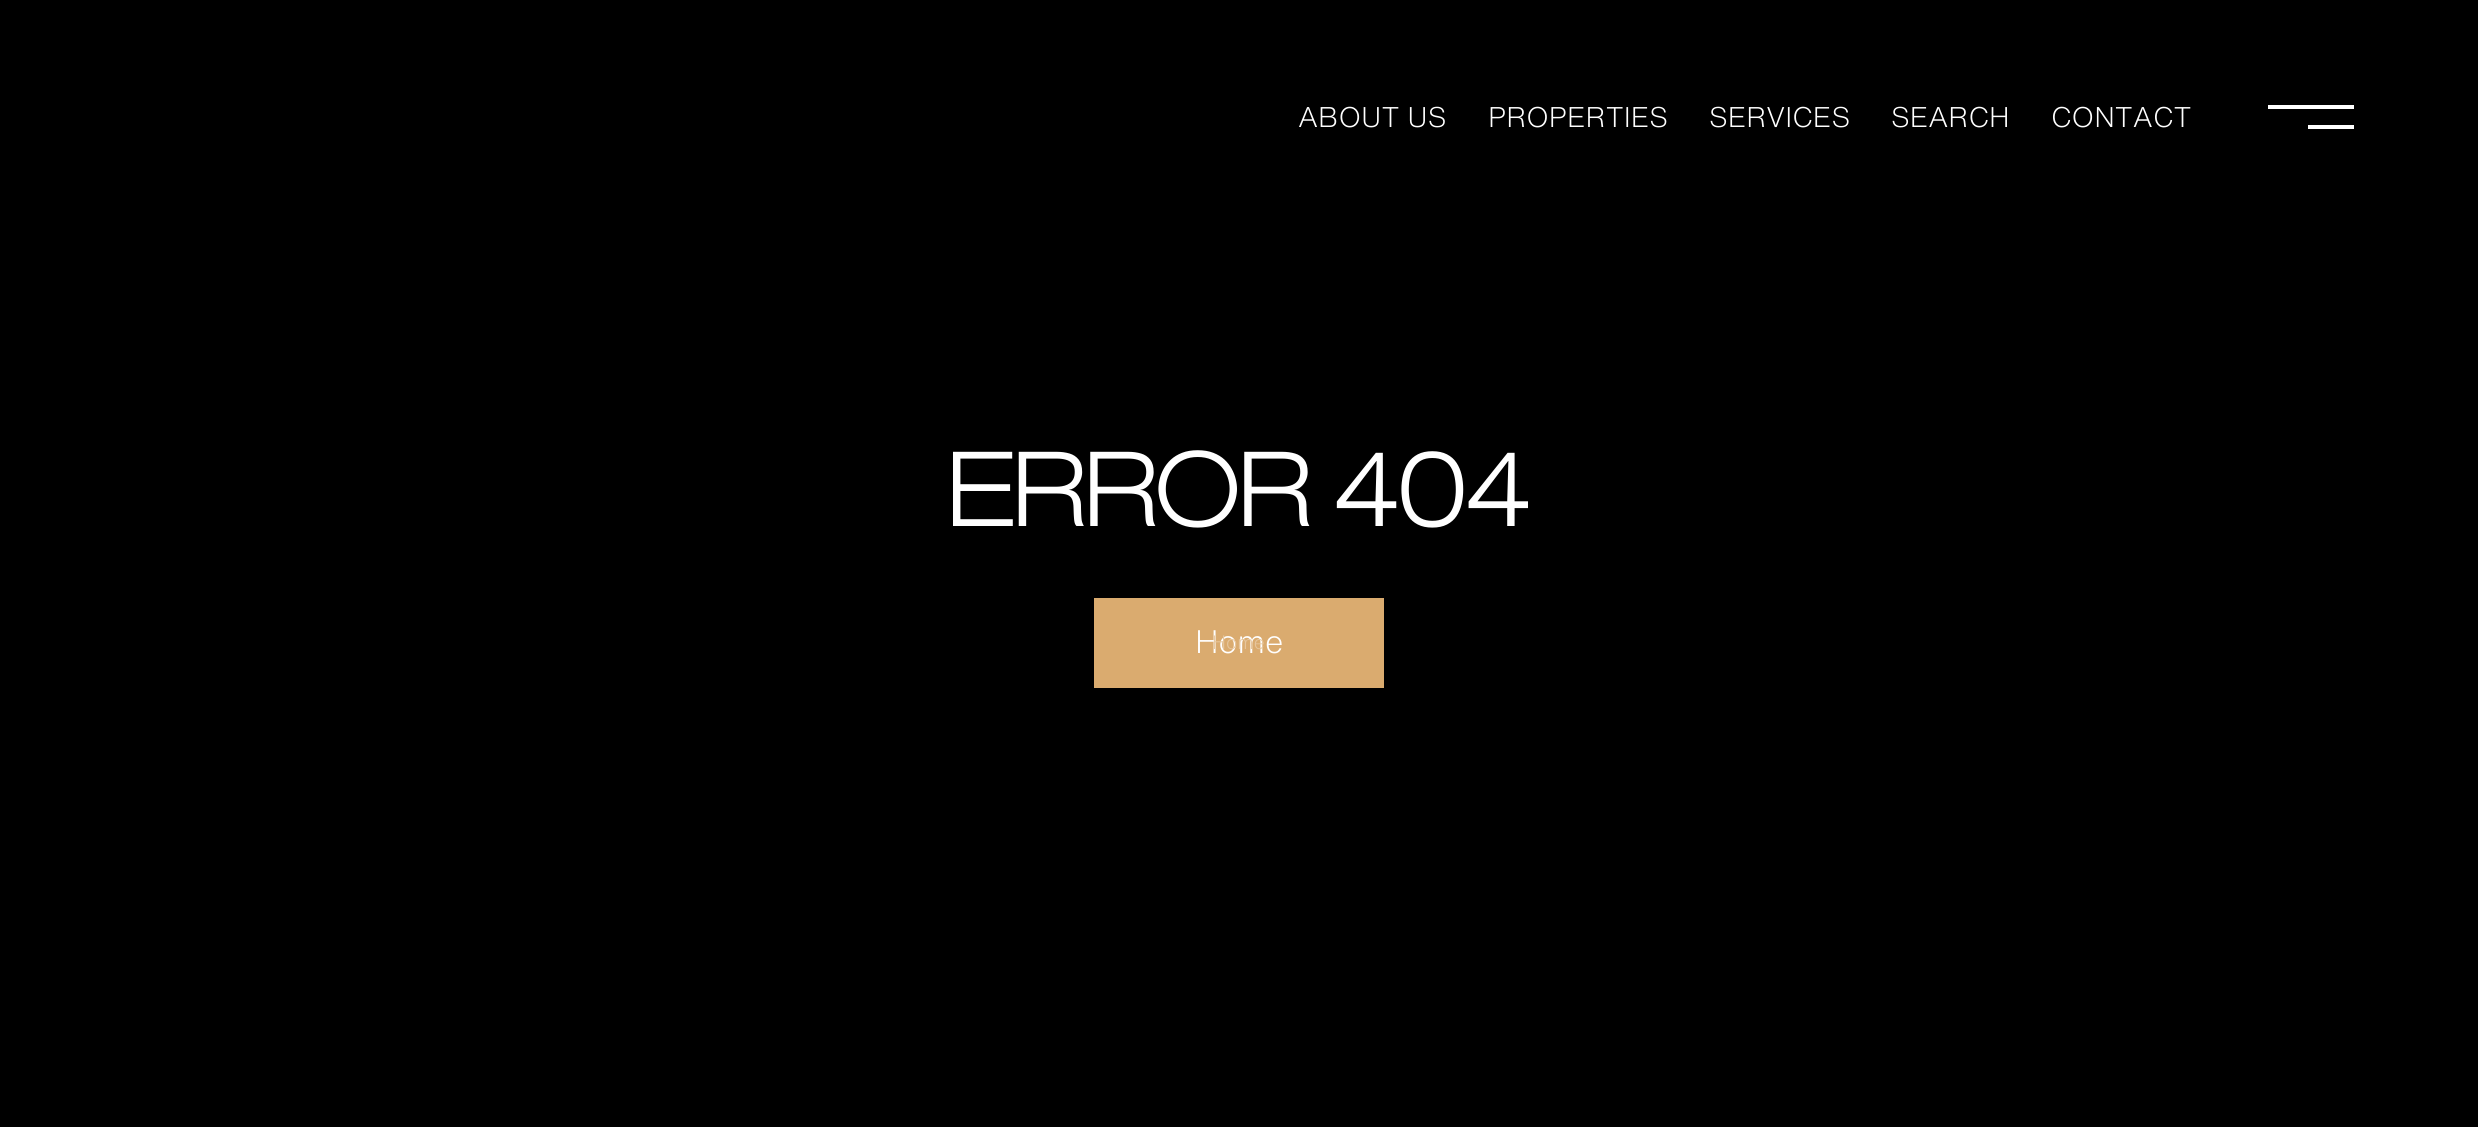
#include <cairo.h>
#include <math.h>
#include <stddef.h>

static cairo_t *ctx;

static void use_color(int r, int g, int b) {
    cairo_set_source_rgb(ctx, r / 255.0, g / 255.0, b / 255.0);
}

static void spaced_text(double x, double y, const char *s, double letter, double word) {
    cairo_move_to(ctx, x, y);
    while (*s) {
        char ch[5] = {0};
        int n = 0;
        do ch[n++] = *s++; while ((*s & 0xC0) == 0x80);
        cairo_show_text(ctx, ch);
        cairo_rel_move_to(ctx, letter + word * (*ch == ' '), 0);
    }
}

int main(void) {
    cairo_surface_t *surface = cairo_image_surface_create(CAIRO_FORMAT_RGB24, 2478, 1127);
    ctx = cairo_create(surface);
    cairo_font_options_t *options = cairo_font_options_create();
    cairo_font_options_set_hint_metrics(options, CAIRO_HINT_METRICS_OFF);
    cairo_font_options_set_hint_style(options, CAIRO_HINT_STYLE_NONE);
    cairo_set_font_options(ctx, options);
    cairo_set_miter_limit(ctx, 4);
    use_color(0, 0, 0);
    cairo_paint(ctx);
    cairo_select_font_face(ctx, "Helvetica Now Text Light", CAIRO_FONT_SLANT_NORMAL, CAIRO_FONT_WEIGHT_NORMAL);
    cairo_set_font_size(ctx, 28);
    use_color(255, 255, 255);
    cairo_move_to(ctx, 1298, 127);
    cairo_show_text(ctx, "ABOUT US");
    cairo_move_to(ctx, 1488, 127);
    cairo_show_text(ctx, "PROPERTIES");
    cairo_move_to(ctx, 1709, 127);
    cairo_show_text(ctx, "SERVICES");
    cairo_move_to(ctx, 1891, 127);
    cairo_show_text(ctx, "SEARCH");
    cairo_move_to(ctx, 2051, 127);
    cairo_show_text(ctx, "CONTACT");
    cairo_rectangle(ctx, 2268, 105, 86, 4);
    cairo_fill(ctx);
    cairo_rectangle(ctx, 2308, 125, 46, 4);
    cairo_fill(ctx);
    cairo_select_font_face(ctx, "Helvetica Neue", CAIRO_FONT_SLANT_NORMAL, CAIRO_FONT_WEIGHT_BOLD);
    cairo_set_font_size(ctx, 100);
    spaced_text(947, 526, "ERROR 404", 1, 0);
    use_color(218, 171, 111);
    cairo_rectangle(ctx, 1094, 598, 290, 90);
    cairo_fill(ctx);
    cairo_select_font_face(ctx, "Helvetica Now Text Light", CAIRO_FONT_SLANT_NORMAL, CAIRO_FONT_WEIGHT_NORMAL);
    cairo_set_font_size(ctx, 32);
    use_color(255, 255, 255);
    cairo_move_to(ctx, 1195, 653);
    cairo_show_text(ctx, "Home");
    cairo_set_font_size(ctx, 19);
    use_color(230, 198, 157);
    cairo_move_to(ctx, 1212, 649);
    cairo_show_text(ctx, "Home");
    cairo_surface_write_to_png(surface, "result.png");
    cairo_font_options_destroy(options);
    cairo_destroy(ctx);
    cairo_surface_destroy(surface);
    return 0;
}
